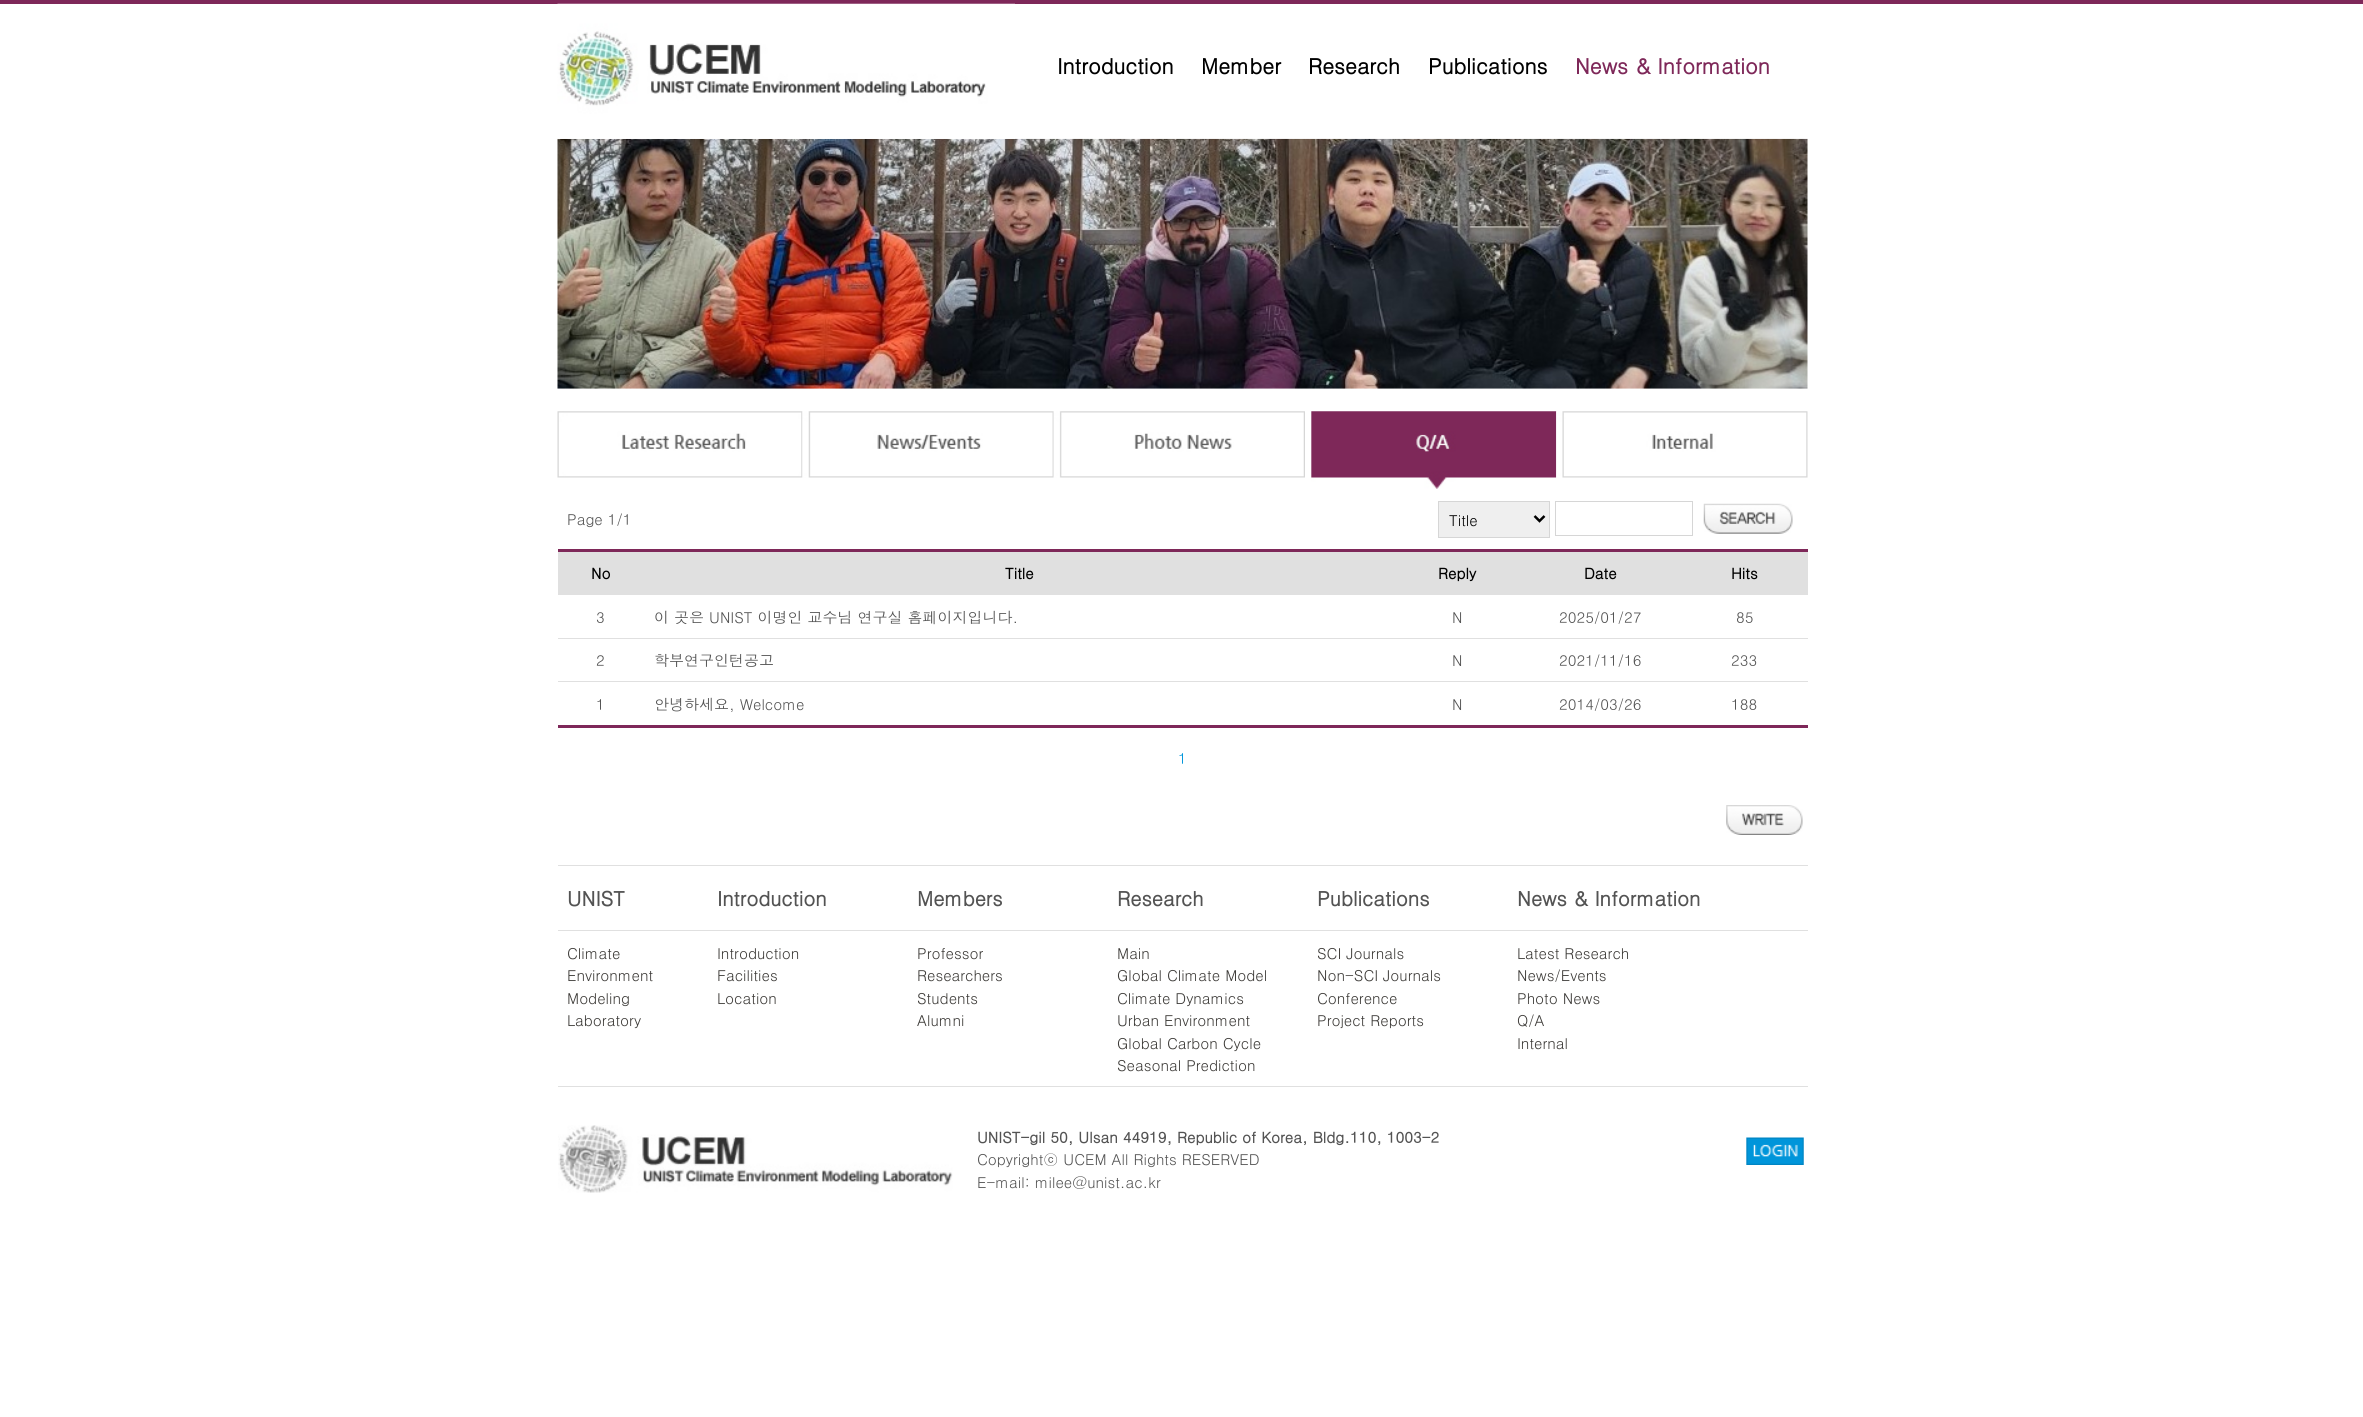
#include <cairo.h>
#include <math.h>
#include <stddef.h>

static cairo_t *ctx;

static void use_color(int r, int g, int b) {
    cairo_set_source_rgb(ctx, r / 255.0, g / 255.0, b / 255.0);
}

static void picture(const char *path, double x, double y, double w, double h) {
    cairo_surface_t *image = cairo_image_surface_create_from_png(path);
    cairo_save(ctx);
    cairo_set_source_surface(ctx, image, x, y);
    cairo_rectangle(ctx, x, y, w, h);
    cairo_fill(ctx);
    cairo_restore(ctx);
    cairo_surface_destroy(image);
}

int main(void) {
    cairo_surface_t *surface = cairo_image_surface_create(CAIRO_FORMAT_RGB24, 2363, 1417);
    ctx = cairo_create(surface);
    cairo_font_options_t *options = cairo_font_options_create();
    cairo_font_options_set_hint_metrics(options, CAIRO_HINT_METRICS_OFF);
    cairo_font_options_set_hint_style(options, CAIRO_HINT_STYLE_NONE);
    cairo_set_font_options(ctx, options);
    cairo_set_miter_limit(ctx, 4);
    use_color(255, 255, 255);
    cairo_paint(ctx);
    use_color(126, 40, 89);
    cairo_rectangle(ctx, 0, 0, 2363, 4);
    cairo_fill(ctx);
    picture("img2.png", 557, 138, 1251, 251);
    picture("img1.png", 557, 3, 458, 136);
    cairo_select_font_face(ctx, "Dotum", CAIRO_FONT_SLANT_NORMAL, CAIRO_FONT_WEIGHT_BOLD);
    cairo_set_font_size(ctx, 21.25);
    use_color(0, 0, 0);
    cairo_move_to(ctx, 1057, 74);
    cairo_show_text(ctx, "Introduction");
    cairo_move_to(ctx, 1201, 74);
    cairo_show_text(ctx, "Member");
    cairo_move_to(ctx, 1308, 74);
    cairo_show_text(ctx, "Research");
    cairo_move_to(ctx, 1428, 74);
    cairo_show_text(ctx, "Publications");
    use_color(126, 40, 89);
    cairo_move_to(ctx, 1575, 74);
    cairo_show_text(ctx, "News & Information");
    picture("img3.png", 557, 411, 246, 67);
    picture("img4.png", 802, 411, 252, 67);
    picture("img5.png", 1053, 411, 252, 67);
    picture("img6.png", 1311, 411, 246, 78);
    picture("img7.png", 1556, 411, 252, 67);
    cairo_select_font_face(ctx, "Dotum", CAIRO_FONT_SLANT_NORMAL, CAIRO_FONT_WEIGHT_NORMAL);
    cairo_set_font_size(ctx, 15);
    use_color(83, 83, 83);
    cairo_move_to(ctx, 567, 525);
    cairo_show_text(ctx, "Page 1/1");
    use_color(239, 239, 239);
    cairo_rectangle(ctx, 1438.5, 501.5, 111, 36);
    cairo_fill_preserve(ctx);
    use_color(214, 214, 214);
    cairo_set_line_width(ctx, 1);
    cairo_stroke(ctx);
    cairo_new_path(ctx);
    cairo_move_to(ctx, 1534.5, 516);
    cairo_line_to(ctx, 1539.5, 521);
    cairo_line_to(ctx, 1544.5, 516);
    use_color(0, 0, 0);
    cairo_set_line_width(ctx, 2.5);
    cairo_stroke(ctx);
    cairo_move_to(ctx, 1449, 526);
    cairo_show_text(ctx, "Title");
    cairo_rectangle(ctx, 1555.5, 501.5, 137, 34);
    use_color(214, 214, 214);
    cairo_set_line_width(ctx, 1);
    cairo_stroke(ctx);
    picture("img8.png", 1703, 503, 90, 31);
    use_color(224, 224, 224);
    cairo_rectangle(ctx, 558, 552, 1250, 43);
    cairo_fill(ctx);
    use_color(126, 40, 89);
    cairo_rectangle(ctx, 558, 549, 1250, 3);
    cairo_fill(ctx);
    cairo_select_font_face(ctx, "Dotum", CAIRO_FONT_SLANT_NORMAL, CAIRO_FONT_WEIGHT_BOLD);
    use_color(0, 0, 0);
    cairo_move_to(ctx, 591, 579);
    cairo_show_text(ctx, "No");
    cairo_move_to(ctx, 1005, 579);
    cairo_show_text(ctx, "Title");
    cairo_move_to(ctx, 1438, 579);
    cairo_show_text(ctx, "Reply");
    cairo_move_to(ctx, 1584, 579);
    cairo_show_text(ctx, "Date");
    cairo_move_to(ctx, 1731, 579);
    cairo_show_text(ctx, "Hits");
    use_color(224, 224, 224);
    cairo_rectangle(ctx, 558, 638, 1250, 1);
    cairo_fill(ctx);
    cairo_select_font_face(ctx, "Dotum", CAIRO_FONT_SLANT_NORMAL, CAIRO_FONT_WEIGHT_NORMAL);
    use_color(83, 83, 83);
    cairo_move_to(ctx, 596, 623);
    cairo_show_text(ctx, "3");
    cairo_move_to(ctx, 654, 623);
    cairo_show_text(ctx, "이 곳은 UNIST 이명인 교수님 연구실 홈페이지입니다.");
    cairo_move_to(ctx, 1452, 623);
    cairo_show_text(ctx, "N");
    cairo_move_to(ctx, 1559, 623);
    cairo_show_text(ctx, "2025/01/27");
    cairo_move_to(ctx, 1736, 623);
    cairo_show_text(ctx, "85");
    use_color(224, 224, 224);
    cairo_rectangle(ctx, 558, 681, 1250, 1);
    cairo_fill(ctx);
    use_color(83, 83, 83);
    cairo_move_to(ctx, 596, 666);
    cairo_show_text(ctx, "2");
    cairo_move_to(ctx, 654, 666);
    cairo_show_text(ctx, "학부연구인턴공고");
    cairo_move_to(ctx, 1452, 666);
    cairo_show_text(ctx, "N");
    cairo_move_to(ctx, 1559, 666);
    cairo_show_text(ctx, "2021/11/16");
    cairo_move_to(ctx, 1731, 666);
    cairo_show_text(ctx, "233");
    use_color(126, 40, 89);
    cairo_rectangle(ctx, 558, 725, 1250, 3);
    cairo_fill(ctx);
    use_color(83, 83, 83);
    cairo_move_to(ctx, 596, 710);
    cairo_show_text(ctx, "1");
    cairo_move_to(ctx, 654, 710);
    cairo_show_text(ctx, "안녕하세요, Welcome");
    cairo_move_to(ctx, 1452, 710);
    cairo_show_text(ctx, "N");
    cairo_move_to(ctx, 1559, 710);
    cairo_show_text(ctx, "2014/03/26");
    cairo_move_to(ctx, 1731, 710);
    cairo_show_text(ctx, "188");
    use_color(0, 149, 218);
    cairo_move_to(ctx, 1178, 764);
    cairo_show_text(ctx, "1");
    picture("img9.png", 1726, 805, 77, 30);
    use_color(224, 224, 224);
    cairo_rectangle(ctx, 558, 865, 1250, 1);
    cairo_fill(ctx);
    cairo_rectangle(ctx, 558, 930, 1250, 1);
    cairo_fill(ctx);
    cairo_select_font_face(ctx, "Dotum", CAIRO_FONT_SLANT_NORMAL, CAIRO_FONT_WEIGHT_BOLD);
    cairo_set_font_size(ctx, 20);
    use_color(83, 83, 83);
    cairo_move_to(ctx, 567, 906);
    cairo_show_text(ctx, "UNIST");
    cairo_move_to(ctx, 717, 906);
    cairo_show_text(ctx, "Introduction");
    cairo_move_to(ctx, 917, 906);
    cairo_show_text(ctx, "Members");
    cairo_move_to(ctx, 1117, 906);
    cairo_show_text(ctx, "Research");
    cairo_move_to(ctx, 1317, 906);
    cairo_show_text(ctx, "Publications");
    cairo_move_to(ctx, 1517, 906);
    cairo_show_text(ctx, "News & Information");
    use_color(224, 224, 224);
    cairo_rectangle(ctx, 558, 1086, 1250, 1);
    cairo_fill(ctx);
    cairo_select_font_face(ctx, "Dotum", CAIRO_FONT_SLANT_NORMAL, CAIRO_FONT_WEIGHT_NORMAL);
    cairo_set_font_size(ctx, 15);
    use_color(60, 58, 55);
    cairo_move_to(ctx, 567, 959);
    cairo_show_text(ctx, "Climate");
    cairo_move_to(ctx, 567, 981);
    cairo_show_text(ctx, "Environment");
    cairo_move_to(ctx, 567, 1004);
    cairo_show_text(ctx, "Modeling");
    cairo_move_to(ctx, 567, 1026);
    cairo_show_text(ctx, "Laboratory");
    cairo_move_to(ctx, 717, 959);
    cairo_show_text(ctx, "Introduction");
    cairo_move_to(ctx, 717, 981);
    cairo_show_text(ctx, "Facilities");
    cairo_move_to(ctx, 717, 1004);
    cairo_show_text(ctx, "Location");
    cairo_move_to(ctx, 917, 959);
    cairo_show_text(ctx, "Professor");
    cairo_move_to(ctx, 917, 981);
    cairo_show_text(ctx, "Researchers");
    cairo_move_to(ctx, 917, 1004);
    cairo_show_text(ctx, "Students");
    cairo_move_to(ctx, 917, 1026);
    cairo_show_text(ctx, "Alumni");
    cairo_move_to(ctx, 1117, 959);
    cairo_show_text(ctx, "Main");
    cairo_move_to(ctx, 1117, 981);
    cairo_show_text(ctx, "Global Climate Model");
    cairo_move_to(ctx, 1117, 1004);
    cairo_show_text(ctx, "Climate Dynamics");
    cairo_move_to(ctx, 1117, 1026);
    cairo_show_text(ctx, "Urban Environment");
    cairo_move_to(ctx, 1117, 1049);
    cairo_show_text(ctx, "Global Carbon Cycle");
    cairo_move_to(ctx, 1117, 1071);
    cairo_show_text(ctx, "Seasonal Prediction");
    cairo_move_to(ctx, 1317, 959);
    cairo_show_text(ctx, "SCI Journals");
    cairo_move_to(ctx, 1317, 981);
    cairo_show_text(ctx, "Non-SCI Journals");
    cairo_move_to(ctx, 1317, 1004);
    cairo_show_text(ctx, "Conference");
    cairo_move_to(ctx, 1317, 1026);
    cairo_show_text(ctx, "Project Reports");
    cairo_move_to(ctx, 1517, 959);
    cairo_show_text(ctx, "Latest Research");
    cairo_move_to(ctx, 1517, 981);
    cairo_show_text(ctx, "News/Events");
    cairo_move_to(ctx, 1517, 1004);
    cairo_show_text(ctx, "Photo News");
    cairo_move_to(ctx, 1517, 1026);
    cairo_show_text(ctx, "Q/A");
    cairo_move_to(ctx, 1517, 1049);
    cairo_show_text(ctx, "Internal");
    picture("img10.png", 558, 1125, 395, 68);
    cairo_select_font_face(ctx, "Dotum", CAIRO_FONT_SLANT_NORMAL, CAIRO_FONT_WEIGHT_BOLD);
    use_color(83, 83, 83);
    cairo_move_to(ctx, 977, 1143);
    cairo_show_text(ctx, "UNIST-gil 50, Ulsan 44919, Republic of Korea, Bldg.110, 1003-2");
    cairo_select_font_face(ctx, "Dotum", CAIRO_FONT_SLANT_NORMAL, CAIRO_FONT_WEIGHT_NORMAL);
    cairo_move_to(ctx, 977, 1165);
    cairo_show_text(ctx, "Copyrightⓒ UCEM All Rights RESERVED");
    cairo_move_to(ctx, 977, 1188);
    cairo_show_text(ctx, "E-mail: milee@unist.ac.kr");
    picture("img11.png", 1746, 1137, 58, 28);
    cairo_surface_write_to_png(surface, "result.png");
    cairo_font_options_destroy(options);
    cairo_destroy(ctx);
    cairo_surface_destroy(surface);
    return 0;
}
